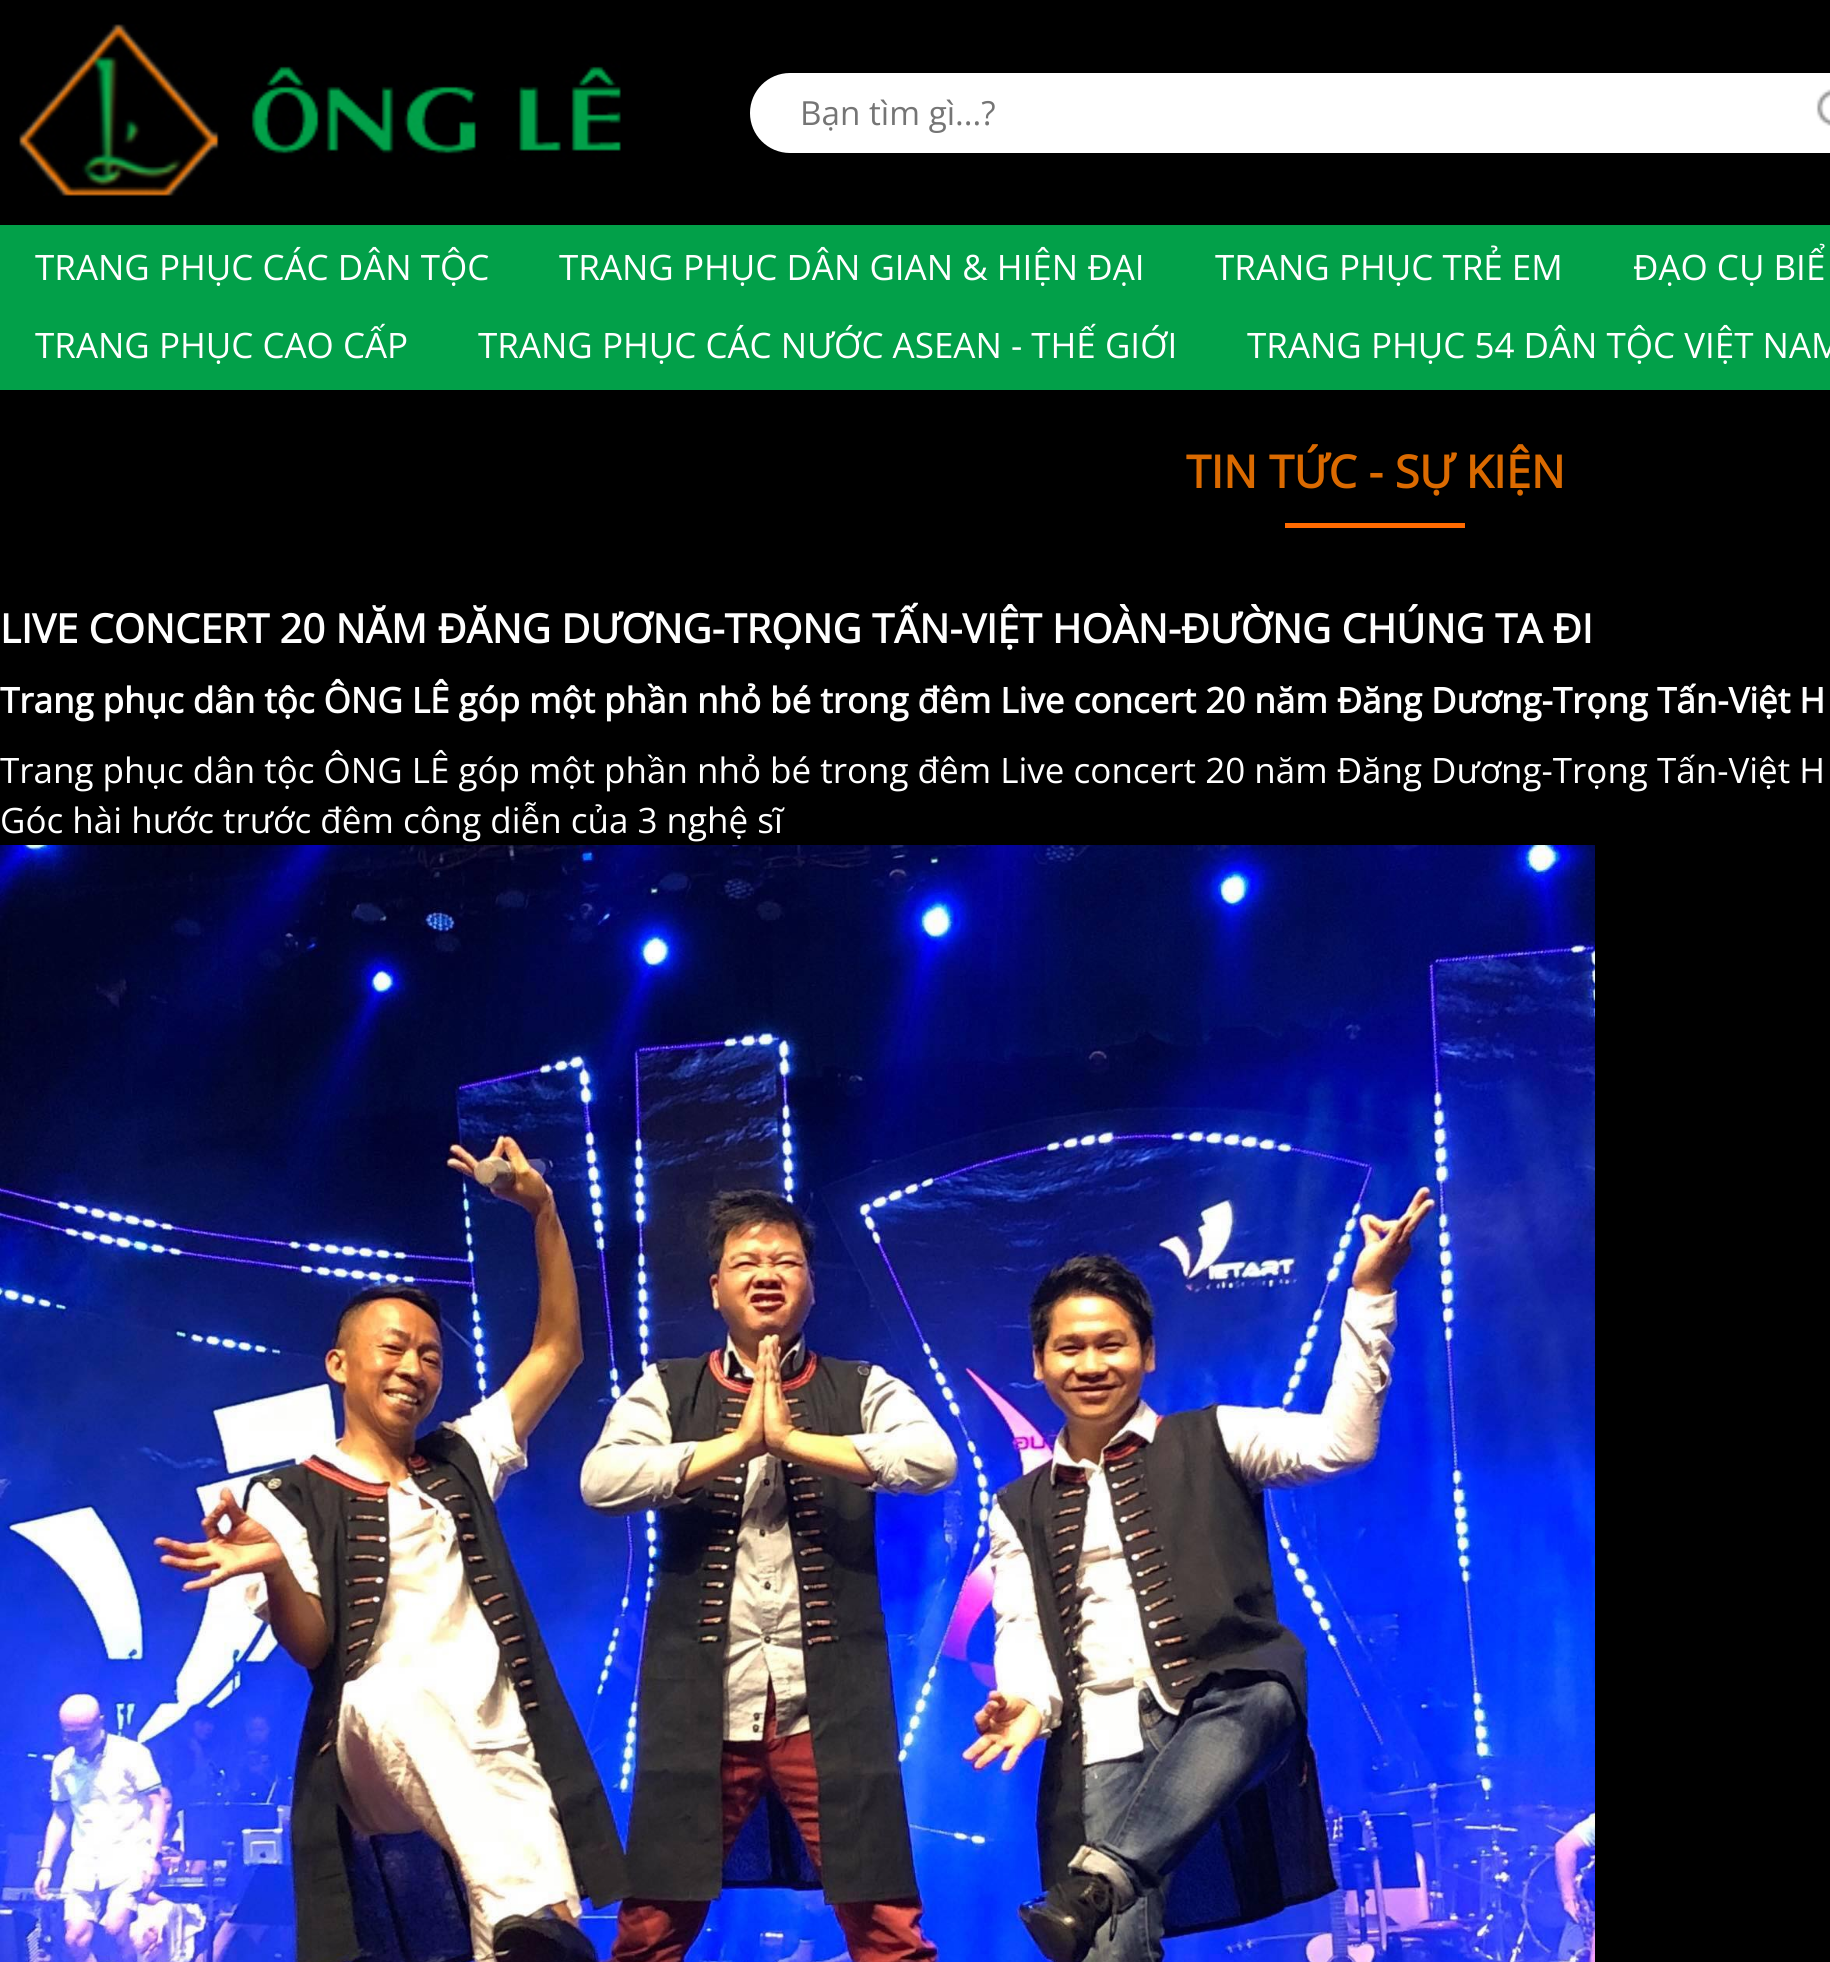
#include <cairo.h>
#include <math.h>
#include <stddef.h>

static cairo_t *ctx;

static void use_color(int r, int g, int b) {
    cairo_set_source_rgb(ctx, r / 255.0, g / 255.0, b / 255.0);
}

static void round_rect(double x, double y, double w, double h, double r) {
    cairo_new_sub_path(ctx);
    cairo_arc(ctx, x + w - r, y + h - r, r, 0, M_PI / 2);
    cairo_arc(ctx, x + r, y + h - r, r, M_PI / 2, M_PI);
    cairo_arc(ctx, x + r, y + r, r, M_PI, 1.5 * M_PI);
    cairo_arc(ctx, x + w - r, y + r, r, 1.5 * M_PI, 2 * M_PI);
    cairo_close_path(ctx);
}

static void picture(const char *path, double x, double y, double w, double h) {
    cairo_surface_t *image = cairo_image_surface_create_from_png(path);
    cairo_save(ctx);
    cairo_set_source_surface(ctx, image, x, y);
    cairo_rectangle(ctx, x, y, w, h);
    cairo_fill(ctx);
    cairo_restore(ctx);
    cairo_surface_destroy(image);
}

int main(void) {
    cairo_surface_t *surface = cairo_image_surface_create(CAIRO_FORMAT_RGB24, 1830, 1962);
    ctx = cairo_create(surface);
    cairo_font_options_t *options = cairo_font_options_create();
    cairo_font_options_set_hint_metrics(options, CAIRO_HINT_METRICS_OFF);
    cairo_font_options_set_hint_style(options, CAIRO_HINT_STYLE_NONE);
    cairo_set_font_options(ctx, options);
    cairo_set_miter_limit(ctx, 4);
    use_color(0, 0, 0);
    cairo_paint(ctx);
    picture("img1.png", 19, 24, 602, 172);
    use_color(255, 255, 255);
    round_rect(750, 73, 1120, 80, 40);
    cairo_fill(ctx);
    cairo_select_font_face(ctx, "Open Sans", CAIRO_FONT_SLANT_NORMAL, CAIRO_FONT_WEIGHT_NORMAL);
    cairo_set_font_size(ctx, 33.25);
    use_color(117, 117, 117);
    cairo_move_to(ctx, 800, 125);
    cairo_show_text(ctx, "Bạn tìm gì...?");
    picture("img2.png", 1816, 89, 14, 37);
    use_color(2, 160, 73);
    cairo_rectangle(ctx, 0, 225, 1830, 165);
    cairo_fill(ctx);
    cairo_set_font_size(ctx, 35);
    use_color(255, 255, 255);
    cairo_move_to(ctx, 35, 280);
    cairo_show_text(ctx, "TRANG PHỤC CÁC DÂN TỘC");
    cairo_move_to(ctx, 559, 280);
    cairo_show_text(ctx, "TRANG PHỤC DÂN GIAN & HIỆN ĐẠI");
    cairo_move_to(ctx, 1215, 280);
    cairo_show_text(ctx, "TRANG PHỤC TRẺ EM");
    cairo_move_to(ctx, 1633, 280);
    cairo_show_text(ctx, "ĐẠO CỤ BIỂ");
    cairo_move_to(ctx, 35, 358);
    cairo_show_text(ctx, "TRANG PHỤC CAO CẤP");
    cairo_move_to(ctx, 478, 358);
    cairo_show_text(ctx, "TRANG PHỤC CÁC NƯỚC ASEAN - THẾ GIỚI");
    cairo_move_to(ctx, 1247, 358);
    cairo_show_text(ctx, "TRANG PHỤC 54 DÂN TỘC VIỆT NAM");
    cairo_select_font_face(ctx, "Open Sans", CAIRO_FONT_SLANT_NORMAL, CAIRO_FONT_WEIGHT_BOLD);
    cairo_set_font_size(ctx, 45);
    use_color(219, 106, 0);
    cairo_move_to(ctx, 1186, 488);
    cairo_show_text(ctx, "TIN TỨC - SỰ KIỆN");
    use_color(255, 106, 0);
    cairo_rectangle(ctx, 1285, 523, 180, 5);
    cairo_fill(ctx);
    cairo_set_font_size(ctx, 40);
    use_color(255, 255, 255);
    cairo_move_to(ctx, 0, 643);
    cairo_show_text(ctx, "LIVE CONCERT 20 NĂM ĐĂNG DƯƠNG-TRỌNG TẤN-VIỆT HOÀN-ĐƯỜNG CHÚNG TA ĐI");
    cairo_set_font_size(ctx, 35);
    cairo_move_to(ctx, 0, 713);
    cairo_show_text(ctx, "Trang phục dân tộc ÔNG LÊ góp một phần nhỏ bé trong đêm Live concert 20 năm Đăng Dương-Trọng Tấn-Việt H");
    cairo_select_font_face(ctx, "Open Sans", CAIRO_FONT_SLANT_NORMAL, CAIRO_FONT_WEIGHT_NORMAL);
    cairo_move_to(ctx, 0, 783);
    cairo_show_text(ctx, "Trang phục dân tộc ÔNG LÊ góp một phần nhỏ bé trong đêm Live concert 20 năm Đăng Dương-Trọng Tấn-Việt H");
    cairo_move_to(ctx, 0, 833);
    cairo_show_text(ctx, "Góc hài hước trước đêm công diễn của 3 nghệ sĩ");
    picture("img3.png", 0, 845, 1595, 1117);
    cairo_surface_write_to_png(surface, "result.png");
    cairo_font_options_destroy(options);
    cairo_destroy(ctx);
    cairo_surface_destroy(surface);
    return 0;
}
